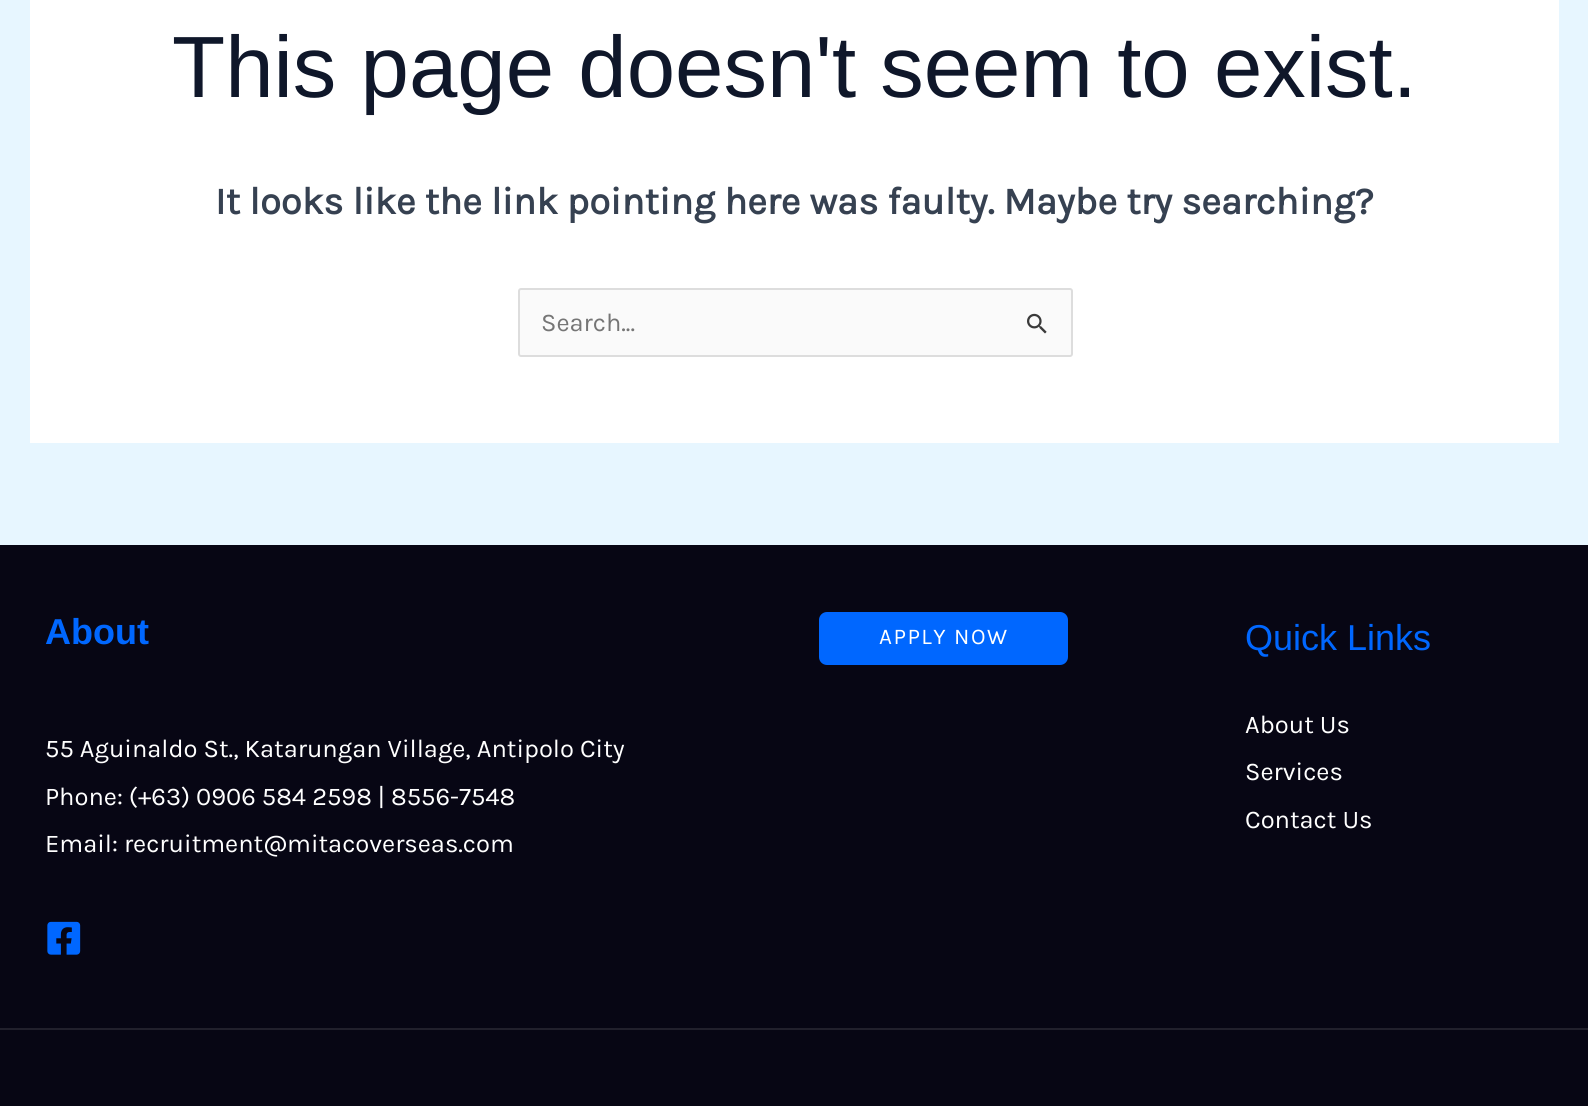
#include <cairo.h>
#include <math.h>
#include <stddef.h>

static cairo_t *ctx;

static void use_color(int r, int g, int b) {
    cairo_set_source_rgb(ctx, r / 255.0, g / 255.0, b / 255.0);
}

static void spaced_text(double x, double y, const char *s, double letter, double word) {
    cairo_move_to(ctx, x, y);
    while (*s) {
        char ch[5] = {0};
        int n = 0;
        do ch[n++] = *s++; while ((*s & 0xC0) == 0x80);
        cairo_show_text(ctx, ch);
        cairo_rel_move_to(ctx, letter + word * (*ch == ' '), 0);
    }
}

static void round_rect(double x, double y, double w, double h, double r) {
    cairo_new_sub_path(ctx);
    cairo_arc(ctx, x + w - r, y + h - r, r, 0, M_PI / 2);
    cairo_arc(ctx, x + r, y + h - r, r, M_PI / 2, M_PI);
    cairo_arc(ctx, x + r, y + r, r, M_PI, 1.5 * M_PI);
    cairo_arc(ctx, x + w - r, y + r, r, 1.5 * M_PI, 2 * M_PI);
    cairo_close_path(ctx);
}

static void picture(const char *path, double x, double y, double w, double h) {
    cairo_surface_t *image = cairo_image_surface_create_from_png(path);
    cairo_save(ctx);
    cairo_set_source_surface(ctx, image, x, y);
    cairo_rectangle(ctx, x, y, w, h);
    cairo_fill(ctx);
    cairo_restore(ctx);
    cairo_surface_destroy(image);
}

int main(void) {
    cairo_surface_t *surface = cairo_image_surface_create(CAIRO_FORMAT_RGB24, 1588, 1106);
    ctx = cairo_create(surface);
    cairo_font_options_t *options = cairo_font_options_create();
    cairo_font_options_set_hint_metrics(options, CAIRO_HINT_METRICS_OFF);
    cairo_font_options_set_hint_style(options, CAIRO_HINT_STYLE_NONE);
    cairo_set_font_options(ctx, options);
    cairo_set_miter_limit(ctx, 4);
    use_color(231, 246, 255);
    cairo_paint(ctx);
    use_color(255, 255, 255);
    cairo_rectangle(ctx, 30, 0, 1529, 443);
    cairo_fill(ctx);
    cairo_select_font_face(ctx, "Liberation Sans", CAIRO_FONT_SLANT_NORMAL, CAIRO_FONT_WEIGHT_NORMAL);
    cairo_set_font_size(ctx, 87);
    use_color(15, 23, 42);
    cairo_move_to(ctx, 172, 97);
    cairo_show_text(ctx, "This page doesn't seem to exist.");
    cairo_select_font_face(ctx, "Karla", CAIRO_FONT_SLANT_NORMAL, CAIRO_FONT_WEIGHT_BOLD);
    cairo_set_font_size(ctx, 38.25);
    use_color(54, 65, 81);
    cairo_move_to(ctx, 215, 214);
    cairo_show_text(ctx, "It looks like the link pointing here was faulty. Maybe try searching?");
    use_color(250, 250, 250);
    round_rect(519, 289, 553, 67, 2);
    cairo_fill_preserve(ctx);
    use_color(221, 221, 221);
    cairo_stroke(ctx);
    cairo_select_font_face(ctx, "Karla", CAIRO_FONT_SLANT_NORMAL, CAIRO_FONT_WEIGHT_NORMAL);
    cairo_set_font_size(ctx, 25.5);
    use_color(117, 117, 117);
    cairo_move_to(ctx, 541, 331);
    cairo_show_text(ctx, "Search...");
    picture("img1.png", 1027, 313, 20, 21);
    use_color(7, 6, 20);
    cairo_rectangle(ctx, 0, 545, 1588, 483);
    cairo_fill(ctx);
    cairo_select_font_face(ctx, "Liberation Sans", CAIRO_FONT_SLANT_NORMAL, CAIRO_FONT_WEIGHT_BOLD);
    cairo_set_font_size(ctx, 36);
    use_color(0, 103, 255);
    cairo_move_to(ctx, 45, 644);
    cairo_show_text(ctx, "About");
    cairo_select_font_face(ctx, "Karla", CAIRO_FONT_SLANT_NORMAL, CAIRO_FONT_WEIGHT_NORMAL);
    cairo_set_font_size(ctx, 25.5);
    use_color(255, 255, 255);
    cairo_move_to(ctx, 45, 757);
    cairo_show_text(ctx, "55 Aguinaldo St., Katarungan Village, Antipolo City");
    cairo_move_to(ctx, 45, 805);
    cairo_show_text(ctx, "Phone: (+63) 0906 584 2598 | 8556-7548");
    cairo_move_to(ctx, 45, 852);
    cairo_show_text(ctx, "Email: recruitment@mitacoverseas.com");
    picture("img2.png", 47, 921, 34, 34);
    use_color(0, 103, 255);
    round_rect(819, 612, 249, 53, 8);
    cairo_fill(ctx);
    cairo_set_font_size(ctx, 22.5);
    use_color(255, 255, 255);
    spaced_text(879, 644, "APPLY NOW", 1.5, 0);
    cairo_select_font_face(ctx, "Liberation Sans", CAIRO_FONT_SLANT_NORMAL, CAIRO_FONT_WEIGHT_NORMAL);
    cairo_set_font_size(ctx, 36);
    use_color(0, 103, 255);
    cairo_move_to(ctx, 1245, 650);
    cairo_show_text(ctx, "Quick Links");
    cairo_select_font_face(ctx, "Karla", CAIRO_FONT_SLANT_NORMAL, CAIRO_FONT_WEIGHT_NORMAL);
    cairo_set_font_size(ctx, 25.5);
    use_color(255, 255, 255);
    cairo_move_to(ctx, 1245, 733);
    cairo_show_text(ctx, "About Us");
    cairo_move_to(ctx, 1245, 780);
    cairo_show_text(ctx, "Services");
    cairo_move_to(ctx, 1245, 828);
    cairo_show_text(ctx, "Contact Us");
    use_color(7, 6, 20);
    cairo_rectangle(ctx, 0, 1030, 1588, 76);
    cairo_fill(ctx);
    use_color(33, 32, 44);
    cairo_rectangle(ctx, 0, 1028, 1588, 2);
    cairo_fill(ctx);
    cairo_surface_write_to_png(surface, "result.png");
    cairo_font_options_destroy(options);
    cairo_destroy(ctx);
    cairo_surface_destroy(surface);
    return 0;
}
